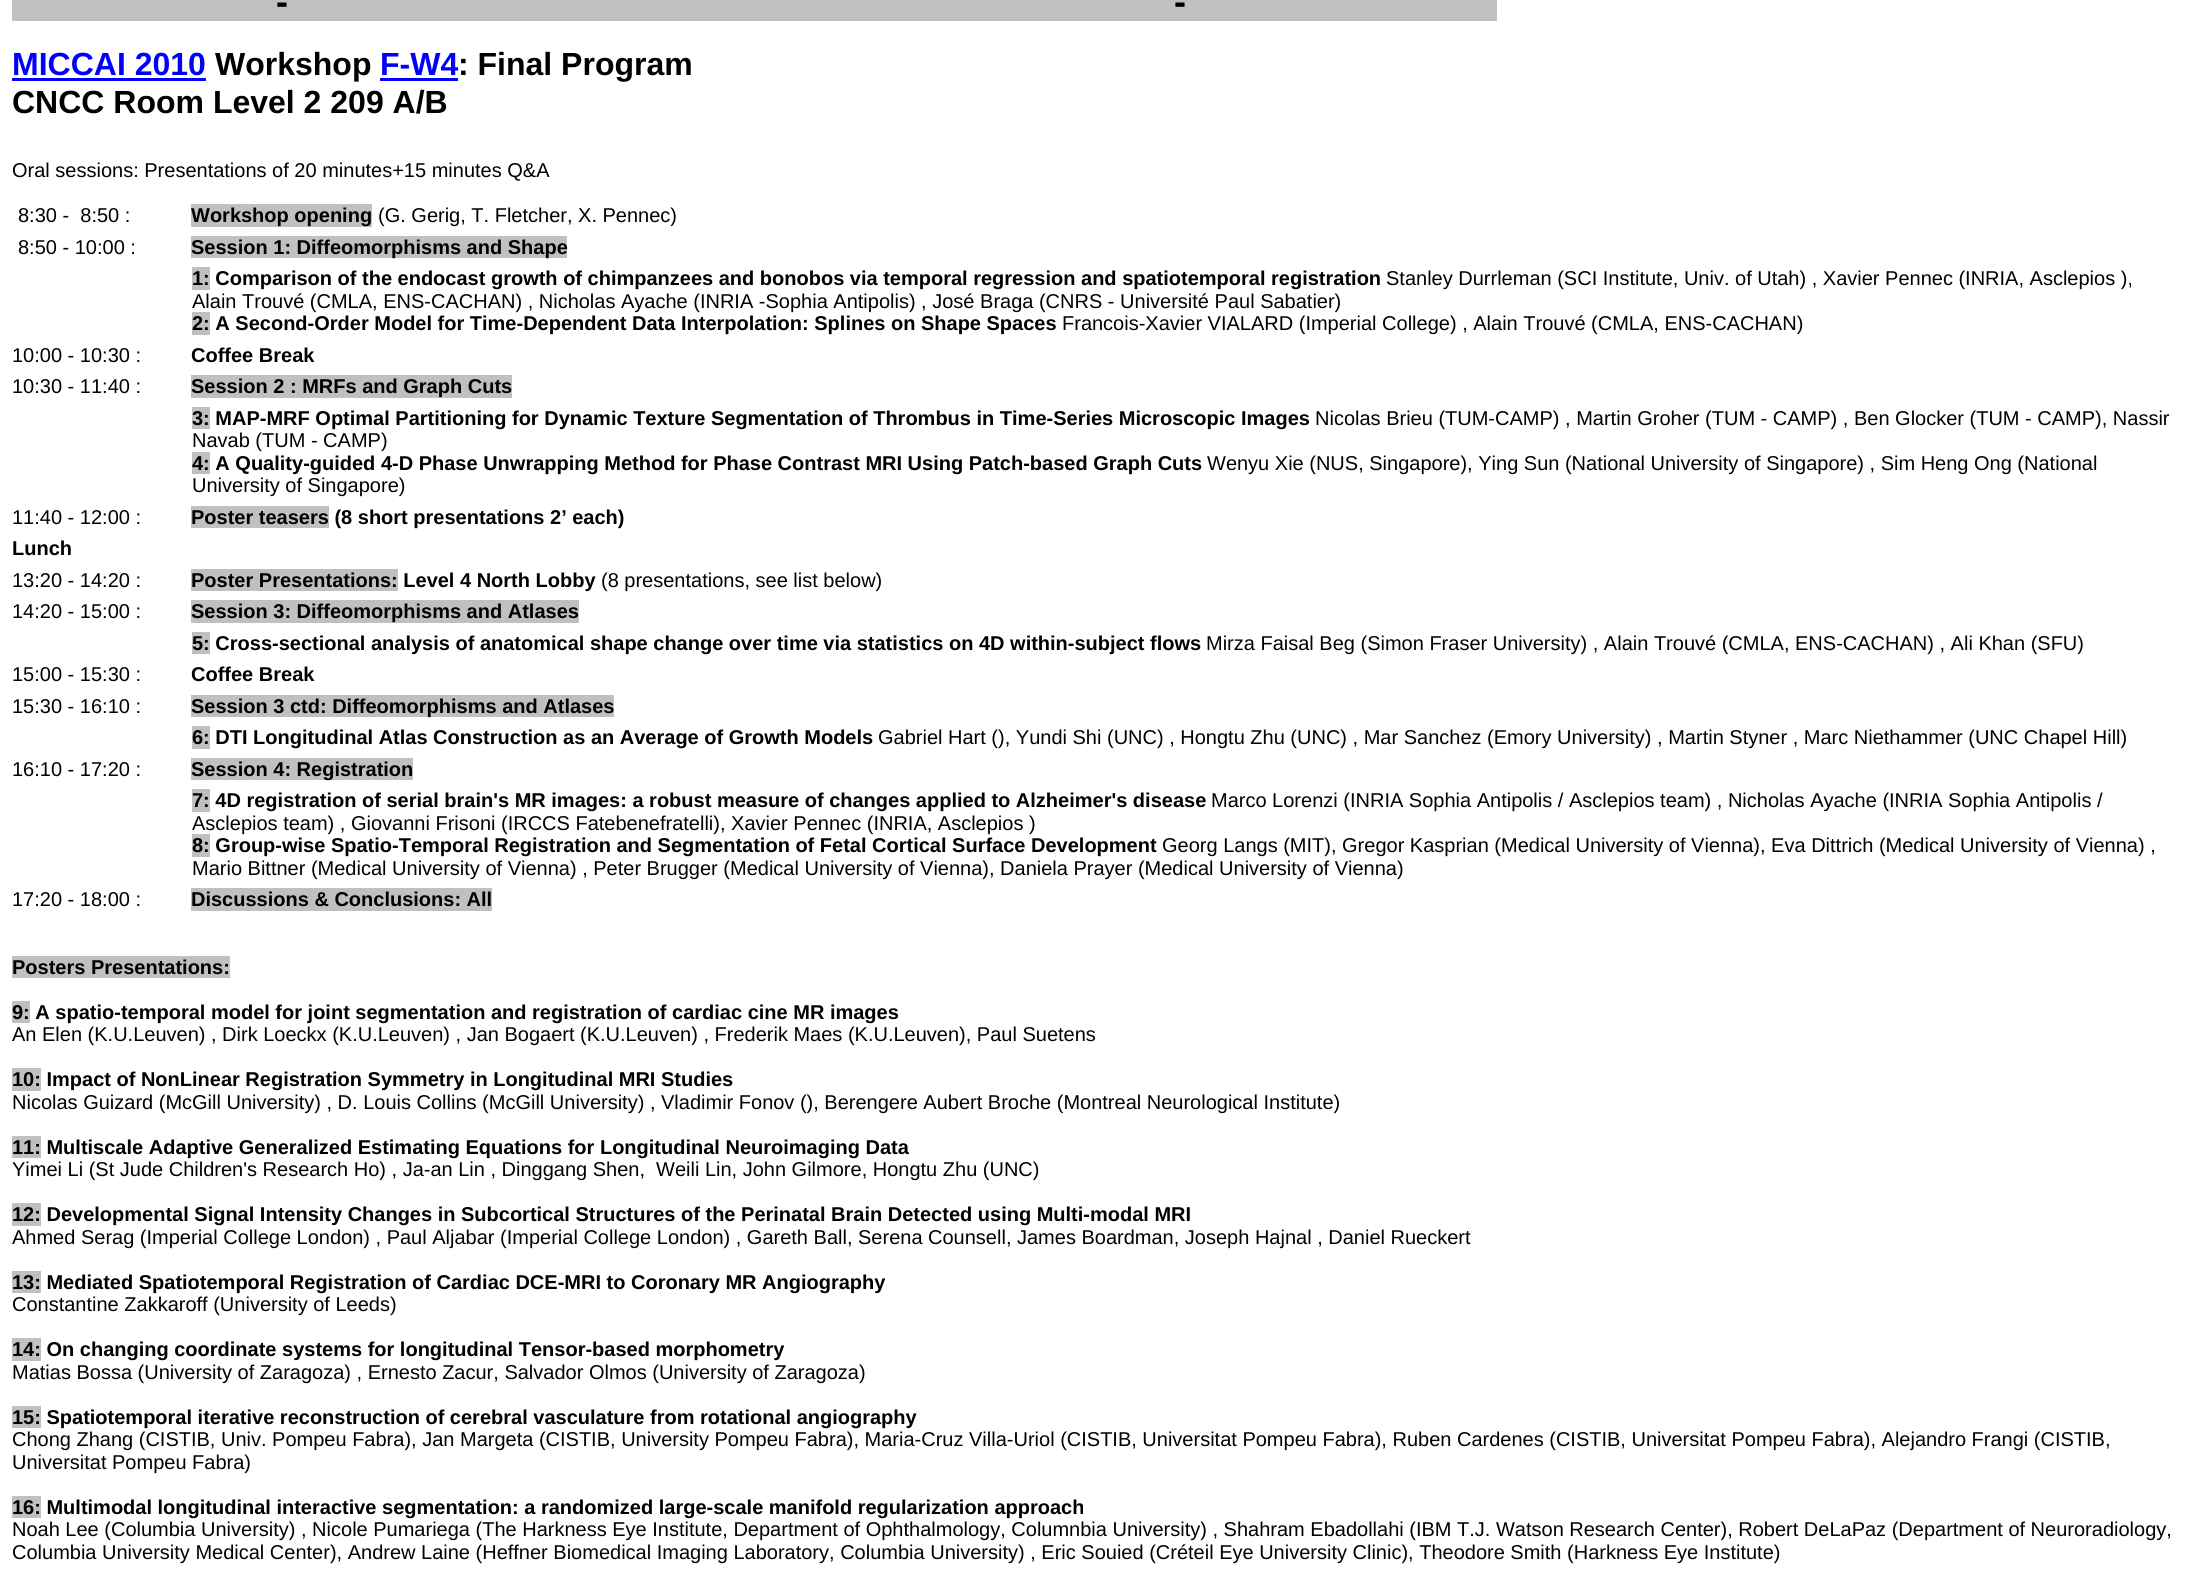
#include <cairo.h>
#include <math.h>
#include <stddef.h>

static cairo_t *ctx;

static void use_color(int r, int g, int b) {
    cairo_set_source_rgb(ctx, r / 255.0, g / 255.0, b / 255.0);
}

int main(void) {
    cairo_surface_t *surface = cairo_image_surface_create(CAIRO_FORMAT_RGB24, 2191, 1595);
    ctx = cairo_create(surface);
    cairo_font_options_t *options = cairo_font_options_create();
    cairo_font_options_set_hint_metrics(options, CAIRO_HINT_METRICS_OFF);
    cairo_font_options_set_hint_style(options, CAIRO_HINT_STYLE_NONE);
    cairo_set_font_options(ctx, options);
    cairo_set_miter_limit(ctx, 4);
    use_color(255, 255, 255);
    cairo_paint(ctx);
    use_color(192, 192, 192);
    cairo_rectangle(ctx, 12, 0, 1485, 21);
    cairo_fill(ctx);
    cairo_select_font_face(ctx, "Liberation Sans", CAIRO_FONT_SLANT_NORMAL, CAIRO_FONT_WEIGHT_BOLD);
    cairo_set_font_size(ctx, 36);
    use_color(0, 0, 0);
    cairo_move_to(ctx, 276, 14);
    cairo_show_text(ctx, "-");
    cairo_move_to(ctx, 1174, 14);
    cairo_show_text(ctx, "-");
    cairo_set_font_size(ctx, 32);
    use_color(0, 0, 255);
    cairo_move_to(ctx, 12, 75);
    cairo_show_text(ctx, "MICCAI 2010");
    cairo_rectangle(ctx, 12, 78, 194, 3);
    cairo_fill(ctx);
    use_color(0, 0, 0);
    cairo_move_to(ctx, 215, 75);
    cairo_show_text(ctx, "Workshop");
    use_color(0, 0, 255);
    cairo_move_to(ctx, 380, 75);
    cairo_show_text(ctx, "F-W4");
    use_color(0, 0, 0);
    cairo_move_to(ctx, 458, 75);
    cairo_show_text(ctx, ": Final Program");
    use_color(0, 0, 255);
    cairo_rectangle(ctx, 380, 78, 78, 3);
    cairo_fill(ctx);
    use_color(0, 0, 0);
    cairo_move_to(ctx, 12, 113);
    cairo_show_text(ctx, "CNCC Room Level 2 209 A/B");
    cairo_select_font_face(ctx, "Liberation Sans", CAIRO_FONT_SLANT_NORMAL, CAIRO_FONT_WEIGHT_NORMAL);
    cairo_set_font_size(ctx, 20);
    cairo_move_to(ctx, 12, 177);
    cairo_show_text(ctx, "Oral sessions: Presentations of 20 minutes+15 minutes Q&A");
    cairo_move_to(ctx, 18, 222);
    cairo_show_text(ctx, "8:30 -  8:50 :");
    use_color(192, 192, 192);
    cairo_rectangle(ctx, 191, 204, 181, 23);
    cairo_fill(ctx);
    cairo_select_font_face(ctx, "Liberation Sans", CAIRO_FONT_SLANT_NORMAL, CAIRO_FONT_WEIGHT_BOLD);
    use_color(0, 0, 0);
    cairo_move_to(ctx, 191, 222);
    cairo_show_text(ctx, "Workshop opening");
    cairo_select_font_face(ctx, "Liberation Sans", CAIRO_FONT_SLANT_NORMAL, CAIRO_FONT_WEIGHT_NORMAL);
    cairo_move_to(ctx, 378, 222);
    cairo_show_text(ctx, "(G. Gerig, T. Fletcher, X. Pennec)");
    cairo_move_to(ctx, 18, 254);
    cairo_show_text(ctx, "8:50 - 10:00 :");
    use_color(192, 192, 192);
    cairo_rectangle(ctx, 191, 236, 376, 22);
    cairo_fill(ctx);
    cairo_select_font_face(ctx, "Liberation Sans", CAIRO_FONT_SLANT_NORMAL, CAIRO_FONT_WEIGHT_BOLD);
    use_color(0, 0, 0);
    cairo_move_to(ctx, 191, 254);
    cairo_show_text(ctx, "Session 1: Diffeomorphisms and Shape");
    use_color(192, 192, 192);
    cairo_rectangle(ctx, 192, 267, 18, 23);
    cairo_fill(ctx);
    use_color(0, 0, 0);
    cairo_move_to(ctx, 192, 285);
    cairo_show_text(ctx, "1: Comparison of the endocast growth of chimpanzees and bonobos via temporal regression and spatiotemporal registration");
    cairo_select_font_face(ctx, "Liberation Sans", CAIRO_FONT_SLANT_NORMAL, CAIRO_FONT_WEIGHT_NORMAL);
    cairo_move_to(ctx, 1386, 285);
    cairo_show_text(ctx, "Stanley Durrleman (SCI Institute, Univ. of Utah) , Xavier Pennec (INRIA, Asclepios ),");
    cairo_move_to(ctx, 192, 308);
    cairo_show_text(ctx, "Alain Trouvé (CMLA, ENS-CACHAN) , Nicholas Ayache (INRIA -Sophia Antipolis) , José Braga (CNRS - Université Paul Sabatier)");
    use_color(192, 192, 192);
    cairo_rectangle(ctx, 192, 312, 18, 23);
    cairo_fill(ctx);
    cairo_select_font_face(ctx, "Liberation Sans", CAIRO_FONT_SLANT_NORMAL, CAIRO_FONT_WEIGHT_BOLD);
    use_color(0, 0, 0);
    cairo_move_to(ctx, 192, 330);
    cairo_show_text(ctx, "2: A Second-Order Model for Time-Dependent Data Interpolation: Splines on Shape Spaces");
    cairo_select_font_face(ctx, "Liberation Sans", CAIRO_FONT_SLANT_NORMAL, CAIRO_FONT_WEIGHT_NORMAL);
    cairo_move_to(ctx, 1062, 330);
    cairo_show_text(ctx, "Francois-Xavier VIALARD (Imperial College) , Alain Trouvé (CMLA, ENS-CACHAN)");
    cairo_move_to(ctx, 12, 362);
    cairo_show_text(ctx, "10:00 - 10:30 :");
    cairo_select_font_face(ctx, "Liberation Sans", CAIRO_FONT_SLANT_NORMAL, CAIRO_FONT_WEIGHT_BOLD);
    cairo_move_to(ctx, 191, 362);
    cairo_show_text(ctx, "Coffee Break");
    cairo_select_font_face(ctx, "Liberation Sans", CAIRO_FONT_SLANT_NORMAL, CAIRO_FONT_WEIGHT_NORMAL);
    cairo_move_to(ctx, 12, 393);
    cairo_show_text(ctx, "10:30 - 11:40 :");
    use_color(192, 192, 192);
    cairo_rectangle(ctx, 191, 375, 321, 23);
    cairo_fill(ctx);
    cairo_select_font_face(ctx, "Liberation Sans", CAIRO_FONT_SLANT_NORMAL, CAIRO_FONT_WEIGHT_BOLD);
    use_color(0, 0, 0);
    cairo_move_to(ctx, 191, 393);
    cairo_show_text(ctx, "Session 2 : MRFs and Graph Cuts");
    use_color(192, 192, 192);
    cairo_rectangle(ctx, 192, 407, 18, 22);
    cairo_fill(ctx);
    use_color(0, 0, 0);
    cairo_move_to(ctx, 192, 425);
    cairo_show_text(ctx, "3: MAP-MRF Optimal Partitioning for Dynamic Texture Segmentation of Thrombus in Time-Series Microscopic Images");
    cairo_select_font_face(ctx, "Liberation Sans", CAIRO_FONT_SLANT_NORMAL, CAIRO_FONT_WEIGHT_NORMAL);
    cairo_move_to(ctx, 1315, 425);
    cairo_show_text(ctx, "Nicolas Brieu (TUM-CAMP) , Martin Groher (TUM - CAMP) , Ben Glocker (TUM - CAMP), Nassir");
    cairo_move_to(ctx, 192, 447);
    cairo_show_text(ctx, "Navab (TUM - CAMP)");
    use_color(192, 192, 192);
    cairo_rectangle(ctx, 192, 452, 18, 22);
    cairo_fill(ctx);
    cairo_select_font_face(ctx, "Liberation Sans", CAIRO_FONT_SLANT_NORMAL, CAIRO_FONT_WEIGHT_BOLD);
    use_color(0, 0, 0);
    cairo_move_to(ctx, 192, 470);
    cairo_show_text(ctx, "4: A Quality-guided 4-D Phase Unwrapping Method for Phase Contrast MRI Using Patch-based Graph Cuts");
    cairo_select_font_face(ctx, "Liberation Sans", CAIRO_FONT_SLANT_NORMAL, CAIRO_FONT_WEIGHT_NORMAL);
    cairo_move_to(ctx, 1207, 470);
    cairo_show_text(ctx, "Wenyu Xie (NUS, Singapore), Ying Sun (National University of Singapore) , Sim Heng Ong (National");
    cairo_move_to(ctx, 192, 492);
    cairo_show_text(ctx, "University of Singapore)");
    cairo_move_to(ctx, 12, 524);
    cairo_show_text(ctx, "11:40 - 12:00 :");
    use_color(192, 192, 192);
    cairo_rectangle(ctx, 191, 506, 138, 22);
    cairo_fill(ctx);
    cairo_select_font_face(ctx, "Liberation Sans", CAIRO_FONT_SLANT_NORMAL, CAIRO_FONT_WEIGHT_BOLD);
    use_color(0, 0, 0);
    cairo_move_to(ctx, 191, 524);
    cairo_show_text(ctx, "Poster teasers (8 short presentations 2’ each)");
    cairo_move_to(ctx, 12, 555);
    cairo_show_text(ctx, "Lunch");
    cairo_select_font_face(ctx, "Liberation Sans", CAIRO_FONT_SLANT_NORMAL, CAIRO_FONT_WEIGHT_NORMAL);
    cairo_move_to(ctx, 12, 587);
    cairo_show_text(ctx, "13:20 - 14:20 :");
    use_color(192, 192, 192);
    cairo_rectangle(ctx, 191, 569, 207, 22);
    cairo_fill(ctx);
    cairo_select_font_face(ctx, "Liberation Sans", CAIRO_FONT_SLANT_NORMAL, CAIRO_FONT_WEIGHT_BOLD);
    use_color(0, 0, 0);
    cairo_move_to(ctx, 191, 587);
    cairo_show_text(ctx, "Poster Presentations: Level 4 North Lobby");
    cairo_select_font_face(ctx, "Liberation Sans", CAIRO_FONT_SLANT_NORMAL, CAIRO_FONT_WEIGHT_NORMAL);
    cairo_move_to(ctx, 601, 587);
    cairo_show_text(ctx, "(8 presentations, see list below)");
    cairo_move_to(ctx, 12, 618);
    cairo_show_text(ctx, "14:20 - 15:00 :");
    use_color(192, 192, 192);
    cairo_rectangle(ctx, 191, 600, 388, 23);
    cairo_fill(ctx);
    cairo_select_font_face(ctx, "Liberation Sans", CAIRO_FONT_SLANT_NORMAL, CAIRO_FONT_WEIGHT_BOLD);
    use_color(0, 0, 0);
    cairo_move_to(ctx, 191, 618);
    cairo_show_text(ctx, "Session 3: Diffeomorphisms and Atlases");
    use_color(192, 192, 192);
    cairo_rectangle(ctx, 192, 632, 18, 22);
    cairo_fill(ctx);
    use_color(0, 0, 0);
    cairo_move_to(ctx, 192, 650);
    cairo_show_text(ctx, "5: Cross-sectional analysis of anatomical shape change over time via statistics on 4D within-subject flows");
    cairo_select_font_face(ctx, "Liberation Sans", CAIRO_FONT_SLANT_NORMAL, CAIRO_FONT_WEIGHT_NORMAL);
    cairo_move_to(ctx, 1206, 650);
    cairo_show_text(ctx, "Mirza Faisal Beg (Simon Fraser University) , Alain Trouvé (CMLA, ENS-CACHAN) , Ali Khan (SFU)");
    cairo_move_to(ctx, 12, 681);
    cairo_show_text(ctx, "15:00 - 15:30 :");
    cairo_select_font_face(ctx, "Liberation Sans", CAIRO_FONT_SLANT_NORMAL, CAIRO_FONT_WEIGHT_BOLD);
    cairo_move_to(ctx, 191, 681);
    cairo_show_text(ctx, "Coffee Break");
    cairo_select_font_face(ctx, "Liberation Sans", CAIRO_FONT_SLANT_NORMAL, CAIRO_FONT_WEIGHT_NORMAL);
    cairo_move_to(ctx, 12, 713);
    cairo_show_text(ctx, "15:30 - 16:10 :");
    use_color(192, 192, 192);
    cairo_rectangle(ctx, 191, 695, 423, 22);
    cairo_fill(ctx);
    cairo_select_font_face(ctx, "Liberation Sans", CAIRO_FONT_SLANT_NORMAL, CAIRO_FONT_WEIGHT_BOLD);
    use_color(0, 0, 0);
    cairo_move_to(ctx, 191, 713);
    cairo_show_text(ctx, "Session 3 ctd: Diffeomorphisms and Atlases");
    use_color(192, 192, 192);
    cairo_rectangle(ctx, 192, 726, 18, 23);
    cairo_fill(ctx);
    use_color(0, 0, 0);
    cairo_move_to(ctx, 192, 744);
    cairo_show_text(ctx, "6: DTI Longitudinal Atlas Construction as an Average of Growth Models");
    cairo_select_font_face(ctx, "Liberation Sans", CAIRO_FONT_SLANT_NORMAL, CAIRO_FONT_WEIGHT_NORMAL);
    cairo_move_to(ctx, 878, 744);
    cairo_show_text(ctx, "Gabriel Hart (), Yundi Shi (UNC) , Hongtu Zhu (UNC) , Mar Sanchez (Emory University) , Martin Styner , Marc Niethammer (UNC Chapel Hill)");
    cairo_move_to(ctx, 12, 776);
    cairo_show_text(ctx, "16:10 - 17:20 :");
    use_color(192, 192, 192);
    cairo_rectangle(ctx, 191, 758, 222, 22);
    cairo_fill(ctx);
    cairo_select_font_face(ctx, "Liberation Sans", CAIRO_FONT_SLANT_NORMAL, CAIRO_FONT_WEIGHT_BOLD);
    use_color(0, 0, 0);
    cairo_move_to(ctx, 191, 776);
    cairo_show_text(ctx, "Session 4: Registration");
    use_color(192, 192, 192);
    cairo_rectangle(ctx, 192, 789, 18, 23);
    cairo_fill(ctx);
    use_color(0, 0, 0);
    cairo_move_to(ctx, 192, 807);
    cairo_show_text(ctx, "7: 4D registration of serial brain's MR images: a robust measure of changes applied to Alzheimer's disease");
    cairo_select_font_face(ctx, "Liberation Sans", CAIRO_FONT_SLANT_NORMAL, CAIRO_FONT_WEIGHT_NORMAL);
    cairo_move_to(ctx, 1211, 807);
    cairo_show_text(ctx, "Marco Lorenzi (INRIA Sophia Antipolis / Asclepios team) , Nicholas Ayache (INRIA Sophia Antipolis /");
    cairo_move_to(ctx, 192, 830);
    cairo_show_text(ctx, "Asclepios team) , Giovanni Frisoni (IRCCS Fatebenefratelli), Xavier Pennec (INRIA, Asclepios )");
    use_color(192, 192, 192);
    cairo_rectangle(ctx, 192, 834, 18, 23);
    cairo_fill(ctx);
    cairo_select_font_face(ctx, "Liberation Sans", CAIRO_FONT_SLANT_NORMAL, CAIRO_FONT_WEIGHT_BOLD);
    use_color(0, 0, 0);
    cairo_move_to(ctx, 192, 852);
    cairo_show_text(ctx, "8: Group-wise Spatio-Temporal Registration and Segmentation of Fetal Cortical Surface Development");
    cairo_select_font_face(ctx, "Liberation Sans", CAIRO_FONT_SLANT_NORMAL, CAIRO_FONT_WEIGHT_NORMAL);
    cairo_move_to(ctx, 1162, 852);
    cairo_show_text(ctx, "Georg Langs (MIT), Gregor Kasprian (Medical University of Vienna), Eva Dittrich (Medical University of Vienna) ,");
    cairo_move_to(ctx, 192, 875);
    cairo_show_text(ctx, "Mario Bittner (Medical University of Vienna) , Peter Brugger (Medical University of Vienna), Daniela Prayer (Medical University of Vienna)");
    cairo_move_to(ctx, 12, 906);
    cairo_show_text(ctx, "17:20 - 18:00 :");
    use_color(192, 192, 192);
    cairo_rectangle(ctx, 191, 888, 301, 23);
    cairo_fill(ctx);
    cairo_select_font_face(ctx, "Liberation Sans", CAIRO_FONT_SLANT_NORMAL, CAIRO_FONT_WEIGHT_BOLD);
    use_color(0, 0, 0);
    cairo_move_to(ctx, 191, 906);
    cairo_show_text(ctx, "Discussions & Conclusions: All");
    use_color(192, 192, 192);
    cairo_rectangle(ctx, 12, 956, 218, 22);
    cairo_fill(ctx);
    use_color(0, 0, 0);
    cairo_move_to(ctx, 12, 974);
    cairo_show_text(ctx, "Posters Presentations:");
    use_color(192, 192, 192);
    cairo_rectangle(ctx, 12, 1001, 18, 22);
    cairo_fill(ctx);
    use_color(0, 0, 0);
    cairo_move_to(ctx, 12, 1019);
    cairo_show_text(ctx, "9: A spatio-temporal model for joint segmentation and registration of cardiac cine MR images");
    cairo_select_font_face(ctx, "Liberation Sans", CAIRO_FONT_SLANT_NORMAL, CAIRO_FONT_WEIGHT_NORMAL);
    cairo_move_to(ctx, 12, 1041);
    cairo_show_text(ctx, "An Elen (K.U.Leuven) , Dirk Loeckx (K.U.Leuven) , Jan Bogaert (K.U.Leuven) , Frederik Maes (K.U.Leuven), Paul Suetens");
    use_color(192, 192, 192);
    cairo_rectangle(ctx, 12, 1068, 29, 23);
    cairo_fill(ctx);
    cairo_select_font_face(ctx, "Liberation Sans", CAIRO_FONT_SLANT_NORMAL, CAIRO_FONT_WEIGHT_BOLD);
    use_color(0, 0, 0);
    cairo_move_to(ctx, 12, 1086);
    cairo_show_text(ctx, "10: Impact of NonLinear Registration Symmetry in Longitudinal MRI Studies");
    cairo_select_font_face(ctx, "Liberation Sans", CAIRO_FONT_SLANT_NORMAL, CAIRO_FONT_WEIGHT_NORMAL);
    cairo_move_to(ctx, 12, 1109);
    cairo_show_text(ctx, "Nicolas Guizard (McGill University) , D. Louis Collins (McGill University) , Vladimir Fonov (), Berengere Aubert Broche (Montreal Neurological Institute)");
    use_color(192, 192, 192);
    cairo_rectangle(ctx, 12, 1136, 29, 22);
    cairo_fill(ctx);
    cairo_select_font_face(ctx, "Liberation Sans", CAIRO_FONT_SLANT_NORMAL, CAIRO_FONT_WEIGHT_BOLD);
    use_color(0, 0, 0);
    cairo_move_to(ctx, 12, 1154);
    cairo_show_text(ctx, "11: Multiscale Adaptive Generalized Estimating Equations for Longitudinal Neuroimaging Data");
    cairo_select_font_face(ctx, "Liberation Sans", CAIRO_FONT_SLANT_NORMAL, CAIRO_FONT_WEIGHT_NORMAL);
    cairo_move_to(ctx, 12, 1176);
    cairo_show_text(ctx, "Yimei Li (St Jude Children's Research Ho) , Ja-an Lin , Dinggang Shen,");
    cairo_move_to(ctx, 656, 1176);
    cairo_show_text(ctx, "Weili Lin, John Gilmore, Hongtu Zhu (UNC)");
    use_color(192, 192, 192);
    cairo_rectangle(ctx, 12, 1203, 29, 23);
    cairo_fill(ctx);
    cairo_select_font_face(ctx, "Liberation Sans", CAIRO_FONT_SLANT_NORMAL, CAIRO_FONT_WEIGHT_BOLD);
    use_color(0, 0, 0);
    cairo_move_to(ctx, 12, 1221);
    cairo_show_text(ctx, "12: Developmental Signal Intensity Changes in Subcortical Structures of the Perinatal Brain Detected using Multi-modal MRI");
    cairo_select_font_face(ctx, "Liberation Sans", CAIRO_FONT_SLANT_NORMAL, CAIRO_FONT_WEIGHT_NORMAL);
    cairo_move_to(ctx, 12, 1244);
    cairo_show_text(ctx, "Ahmed Serag (Imperial College London) , Paul Aljabar (Imperial College London) , Gareth Ball, Serena Counsell, James Boardman, Joseph Hajnal , Daniel Rueckert");
    use_color(192, 192, 192);
    cairo_rectangle(ctx, 12, 1271, 29, 22);
    cairo_fill(ctx);
    cairo_select_font_face(ctx, "Liberation Sans", CAIRO_FONT_SLANT_NORMAL, CAIRO_FONT_WEIGHT_BOLD);
    use_color(0, 0, 0);
    cairo_move_to(ctx, 12, 1289);
    cairo_show_text(ctx, "13: Mediated Spatiotemporal Registration of Cardiac DCE-MRI to Coronary MR Angiography");
    cairo_select_font_face(ctx, "Liberation Sans", CAIRO_FONT_SLANT_NORMAL, CAIRO_FONT_WEIGHT_NORMAL);
    cairo_move_to(ctx, 12, 1311);
    cairo_show_text(ctx, "Constantine Zakkaroff (University of Leeds)");
    use_color(192, 192, 192);
    cairo_rectangle(ctx, 12, 1338, 29, 23);
    cairo_fill(ctx);
    cairo_select_font_face(ctx, "Liberation Sans", CAIRO_FONT_SLANT_NORMAL, CAIRO_FONT_WEIGHT_BOLD);
    use_color(0, 0, 0);
    cairo_move_to(ctx, 12, 1356);
    cairo_show_text(ctx, "14: On changing coordinate systems for longitudinal Tensor-based morphometry");
    cairo_select_font_face(ctx, "Liberation Sans", CAIRO_FONT_SLANT_NORMAL, CAIRO_FONT_WEIGHT_NORMAL);
    cairo_move_to(ctx, 12, 1379);
    cairo_show_text(ctx, "Matias Bossa (University of Zaragoza) , Ernesto Zacur, Salvador Olmos (University of Zaragoza)");
    use_color(192, 192, 192);
    cairo_rectangle(ctx, 12, 1406, 29, 22);
    cairo_fill(ctx);
    cairo_select_font_face(ctx, "Liberation Sans", CAIRO_FONT_SLANT_NORMAL, CAIRO_FONT_WEIGHT_BOLD);
    use_color(0, 0, 0);
    cairo_move_to(ctx, 12, 1424);
    cairo_show_text(ctx, "15: Spatiotemporal iterative reconstruction of cerebral vasculature from rotational angiography");
    cairo_select_font_face(ctx, "Liberation Sans", CAIRO_FONT_SLANT_NORMAL, CAIRO_FONT_WEIGHT_NORMAL);
    cairo_move_to(ctx, 12, 1446);
    cairo_show_text(ctx, "Chong Zhang (CISTIB, Univ. Pompeu Fabra), Jan Margeta (CISTIB, University Pompeu Fabra), Maria-Cruz Villa-Uriol (CISTIB, Universitat Pompeu Fabra), Ruben Cardenes (CISTIB, Universitat Pompeu Fabra), Alejandro Frangi (CISTIB,");
    cairo_move_to(ctx, 12, 1469);
    cairo_show_text(ctx, "Universitat Pompeu Fabra)");
    use_color(192, 192, 192);
    cairo_rectangle(ctx, 12, 1496, 29, 22);
    cairo_fill(ctx);
    cairo_select_font_face(ctx, "Liberation Sans", CAIRO_FONT_SLANT_NORMAL, CAIRO_FONT_WEIGHT_BOLD);
    use_color(0, 0, 0);
    cairo_move_to(ctx, 12, 1514);
    cairo_show_text(ctx, "16: Multimodal longitudinal interactive segmentation: a randomized large-scale manifold regularization approach");
    cairo_select_font_face(ctx, "Liberation Sans", CAIRO_FONT_SLANT_NORMAL, CAIRO_FONT_WEIGHT_NORMAL);
    cairo_move_to(ctx, 12, 1536);
    cairo_show_text(ctx, "Noah Lee (Columbia University) , Nicole Pumariega (The Harkness Eye Institute, Department of Ophthalmology, Columnbia University) , Shahram Ebadollahi (IBM T.J. Watson Research Center), Robert DeLaPaz (Department of Neuroradiology,");
    cairo_move_to(ctx, 12, 1559);
    cairo_show_text(ctx, "Columbia University Medical Center), Andrew Laine (Heffner Biomedical Imaging Laboratory, Columbia University) , Eric Souied (Créteil Eye University Clinic), Theodore Smith (Harkness Eye Institute)");
    cairo_surface_write_to_png(surface, "result.png");
    cairo_font_options_destroy(options);
    cairo_destroy(ctx);
    cairo_surface_destroy(surface);
    return 0;
}
